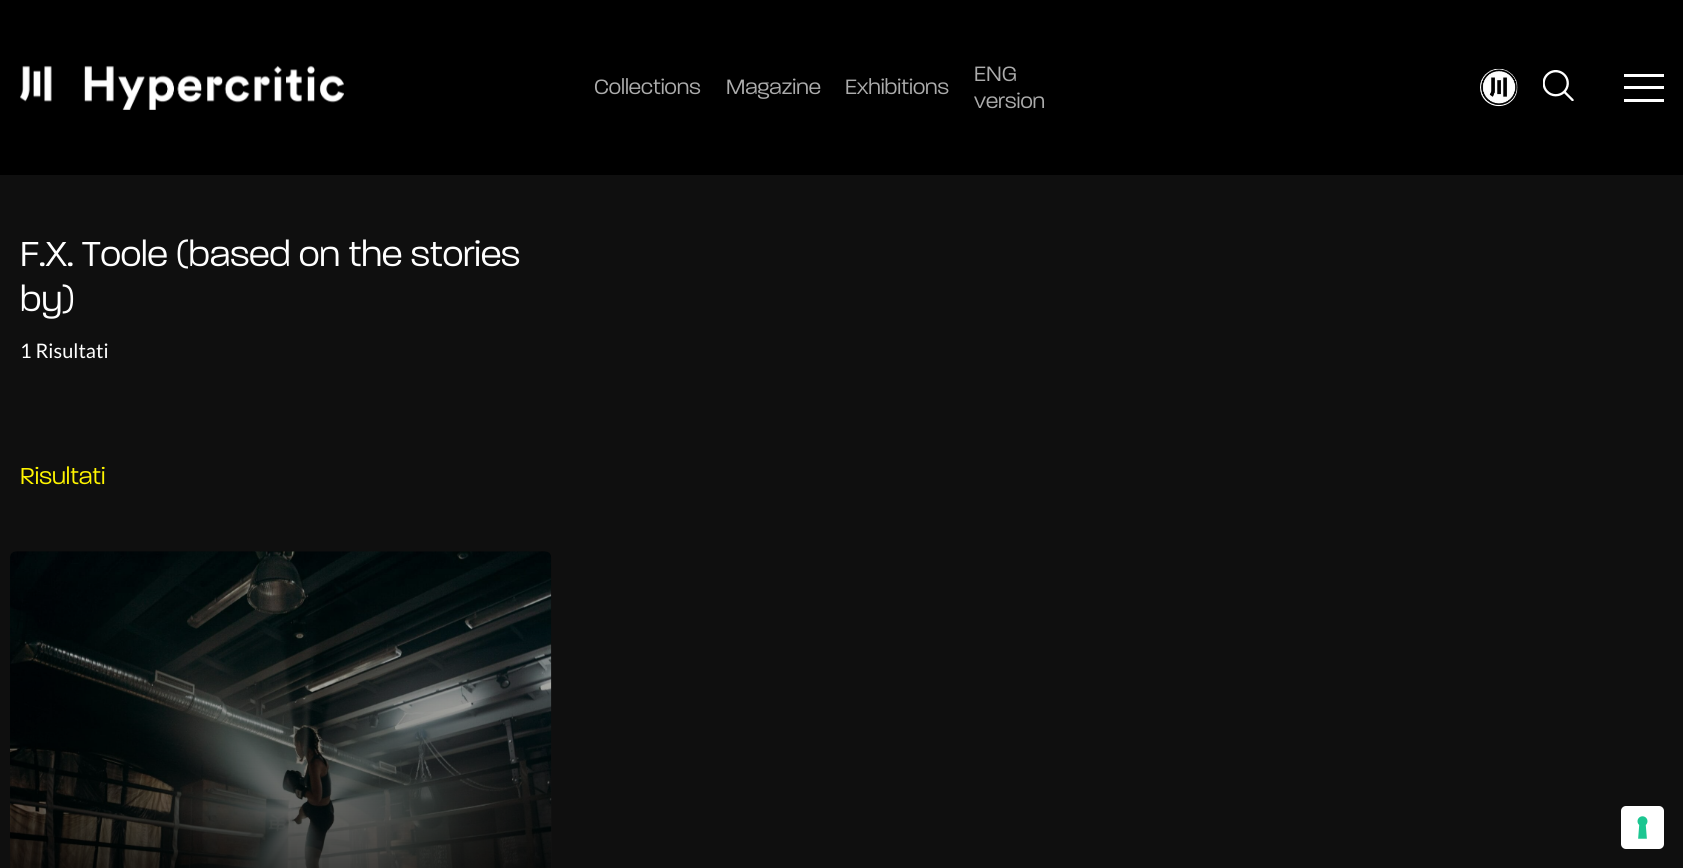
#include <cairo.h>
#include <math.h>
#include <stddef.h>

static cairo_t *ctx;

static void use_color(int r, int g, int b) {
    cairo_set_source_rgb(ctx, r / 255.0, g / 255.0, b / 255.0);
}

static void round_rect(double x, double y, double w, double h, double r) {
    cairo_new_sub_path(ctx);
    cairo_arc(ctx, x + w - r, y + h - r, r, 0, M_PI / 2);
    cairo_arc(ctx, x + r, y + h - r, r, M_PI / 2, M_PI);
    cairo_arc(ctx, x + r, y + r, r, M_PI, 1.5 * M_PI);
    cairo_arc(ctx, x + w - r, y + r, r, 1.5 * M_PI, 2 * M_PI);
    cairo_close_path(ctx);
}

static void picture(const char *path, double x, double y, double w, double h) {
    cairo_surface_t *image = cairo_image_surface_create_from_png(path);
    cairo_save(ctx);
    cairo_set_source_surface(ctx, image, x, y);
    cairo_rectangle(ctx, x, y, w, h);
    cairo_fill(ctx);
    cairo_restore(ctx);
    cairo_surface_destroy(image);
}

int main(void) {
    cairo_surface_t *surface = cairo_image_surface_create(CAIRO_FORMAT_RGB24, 1683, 868);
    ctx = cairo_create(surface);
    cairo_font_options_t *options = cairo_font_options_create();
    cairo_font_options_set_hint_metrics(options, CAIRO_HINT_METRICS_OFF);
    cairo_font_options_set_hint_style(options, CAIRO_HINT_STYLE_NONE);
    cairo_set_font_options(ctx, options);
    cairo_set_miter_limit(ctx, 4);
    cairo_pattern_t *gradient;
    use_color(15, 15, 15);
    cairo_paint(ctx);
    use_color(0, 0, 0);
    cairo_rectangle(ctx, 0, 0, 1683, 175);
    cairo_fill(ctx);
    picture("img1.png", 20, 65, 324, 45);
    cairo_select_font_face(ctx, "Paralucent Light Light", CAIRO_FONT_SLANT_NORMAL, CAIRO_FONT_WEIGHT_NORMAL);
    cairo_set_font_size(ctx, 22.5);
    use_color(172, 172, 172);
    cairo_move_to(ctx, 594, 94);
    cairo_show_text(ctx, "Collections");
    cairo_move_to(ctx, 726, 94);
    cairo_show_text(ctx, "Magazine");
    cairo_move_to(ctx, 845, 94);
    cairo_show_text(ctx, "Exhibitions");
    cairo_move_to(ctx, 974, 81);
    cairo_show_text(ctx, "ENG");
    cairo_move_to(ctx, 974, 108);
    cairo_show_text(ctx, "version");
    picture("img2.png", 1480, 68, 38, 39);
    picture("img3.png", 1543, 70, 31, 31);
    use_color(255, 255, 255);
    cairo_rectangle(ctx, 1624, 86, 40, 3);
    cairo_fill(ctx);
    cairo_rectangle(ctx, 1624, 74, 40, 3);
    cairo_fill(ctx);
    cairo_rectangle(ctx, 1624, 99, 40, 3);
    cairo_fill(ctx);
    cairo_set_font_size(ctx, 37.5);
    cairo_move_to(ctx, 20, 266);
    cairo_show_text(ctx, "F.X. Toole (based on the stories");
    cairo_move_to(ctx, 20, 311);
    cairo_show_text(ctx, "by)");
    cairo_select_font_face(ctx, "Lato", CAIRO_FONT_SLANT_NORMAL, CAIRO_FONT_WEIGHT_NORMAL);
    cairo_set_font_size(ctx, 20);
    cairo_move_to(ctx, 20, 358);
    cairo_show_text(ctx, "1 Risultati");
    cairo_select_font_face(ctx, "Paralucent Light Light", CAIRO_FONT_SLANT_NORMAL, CAIRO_FONT_WEIGHT_NORMAL);
    cairo_set_font_size(ctx, 25);
    use_color(255, 245, 0);
    cairo_move_to(ctx, 20, 484);
    cairo_show_text(ctx, "Risultati");
    picture("img4.png", 10, 551, 542, 317);
    gradient = cairo_pattern_create_linear(281, 551, 281, 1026);
    cairo_pattern_add_color_stop_rgba(gradient, 0, 0, 0, 0, 0);
    cairo_pattern_add_color_stop_rgba(gradient, 0.71, 0, 0, 0, 0.77);
    cairo_pattern_add_color_stop_rgba(gradient, 1, 0, 0, 0, 0.8);
    cairo_set_source(ctx, gradient);
    cairo_pattern_destroy(gradient);
    cairo_rectangle(ctx, 10, 574, 541, 294);
    cairo_fill(ctx);
    use_color(255, 255, 255);
    round_rect(1621, 806, 43, 43, 5);
    cairo_fill(ctx);
    picture("img5.png", 1637, 816, 11, 23);
    cairo_surface_write_to_png(surface, "result.png");
    cairo_font_options_destroy(options);
    cairo_destroy(ctx);
    cairo_surface_destroy(surface);
    return 0;
}
